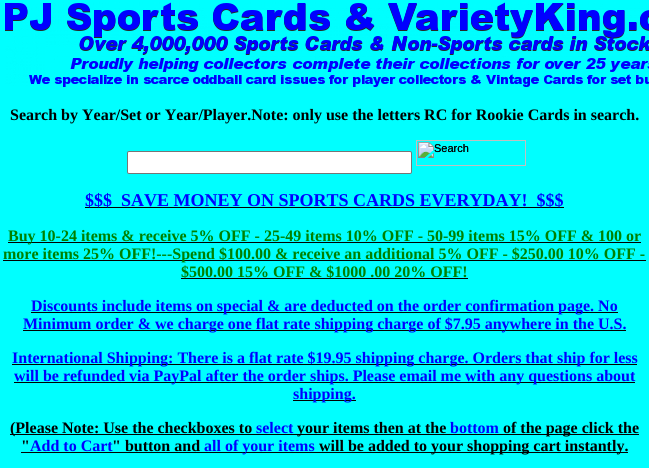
#include <cairo.h>
#include <math.h>
#include <stddef.h>

static cairo_t *ctx;

static void use_color(int r, int g, int b) {
    cairo_set_source_rgb(ctx, r / 255.0, g / 255.0, b / 255.0);
}

static void round_rect(double x, double y, double w, double h, double r) {
    cairo_new_sub_path(ctx);
    cairo_arc(ctx, x + w - r, y + h - r, r, 0, M_PI / 2);
    cairo_arc(ctx, x + r, y + h - r, r, M_PI / 2, M_PI);
    cairo_arc(ctx, x + r, y + r, r, M_PI, 1.5 * M_PI);
    cairo_arc(ctx, x + w - r, y + r, r, 1.5 * M_PI, 2 * M_PI);
    cairo_close_path(ctx);
}

static void picture(const char *path, double x, double y, double w, double h) {
    cairo_surface_t *image = cairo_image_surface_create_from_png(path);
    cairo_save(ctx);
    cairo_set_source_surface(ctx, image, x, y);
    cairo_rectangle(ctx, x, y, w, h);
    cairo_fill(ctx);
    cairo_restore(ctx);
    cairo_surface_destroy(image);
}

int main(void) {
    cairo_surface_t *surface = cairo_image_surface_create(CAIRO_FORMAT_RGB24, 649, 468);
    ctx = cairo_create(surface);
    cairo_font_options_t *options = cairo_font_options_create();
    cairo_font_options_set_hint_metrics(options, CAIRO_HINT_METRICS_OFF);
    cairo_font_options_set_hint_style(options, CAIRO_HINT_STYLE_NONE);
    cairo_set_font_options(ctx, options);
    cairo_set_miter_limit(ctx, 4);
    use_color(0, 255, 255);
    cairo_paint(ctx);
    picture("img1.png", 5, 2, 644, 85);
    cairo_select_font_face(ctx, "Liberation Serif", CAIRO_FONT_SLANT_NORMAL, CAIRO_FONT_WEIGHT_BOLD);
    cairo_set_font_size(ctx, 16);
    use_color(0, 0, 0);
    cairo_move_to(ctx, 10, 120);
    cairo_show_text(ctx, "Search by Year/Set or Year/Player.Note: only use the letters RC for Rookie Cards in search.");
    picture("img2.png", 416, 140, 110, 26);
    cairo_select_font_face(ctx, "Liberation Sans", CAIRO_FONT_SLANT_NORMAL, CAIRO_FONT_WEIGHT_NORMAL);
    cairo_set_font_size(ctx, 11);
    cairo_move_to(ctx, 434, 152);
    cairo_show_text(ctx, "Search");
    use_color(255, 255, 255);
    round_rect(127.5, 151.5, 284, 22, 1.5);
    cairo_fill_preserve(ctx);
    use_color(118, 118, 118);
    cairo_set_line_width(ctx, 1);
    cairo_stroke(ctx);
    use_color(0, 0, 0);
    cairo_rectangle(ctx, 85, 207, 479, 1);
    cairo_fill(ctx);
    cairo_select_font_face(ctx, "Liberation Serif", CAIRO_FONT_SLANT_NORMAL, CAIRO_FONT_WEIGHT_BOLD);
    cairo_set_font_size(ctx, 18);
    use_color(0, 0, 255);
    cairo_move_to(ctx, 85, 206);
    cairo_show_text(ctx, "$$$");
    cairo_move_to(ctx, 121, 206);
    cairo_show_text(ctx, "SAVE MONEY ON SPORTS CARDS EVERYDAY!  $$$");
    use_color(0, 0, 0);
    cairo_rectangle(ctx, 8, 242, 633, 1);
    cairo_fill(ctx);
    cairo_set_font_size(ctx, 16);
    use_color(0, 128, 0);
    cairo_move_to(ctx, 8, 241);
    cairo_show_text(ctx, "Buy 10-24 items & receive 5% OFF - 25-49 items 10% OFF - 50-99 items 15% OFF & 100 or");
    use_color(0, 0, 0);
    cairo_rectangle(ctx, 3, 260, 643, 1);
    cairo_fill(ctx);
    use_color(0, 128, 0);
    cairo_move_to(ctx, 3, 259);
    cairo_show_text(ctx, "more items 25% OFF!---Spend $100.00 & receive an additional 5% OFF - $250.00 10% OFF -");
    use_color(0, 0, 0);
    cairo_rectangle(ctx, 181, 278, 287, 1);
    cairo_fill(ctx);
    use_color(0, 128, 0);
    cairo_move_to(ctx, 181, 277);
    cairo_show_text(ctx, "$500.00 15% OFF & $1000 .00 20% OFF!");
    use_color(0, 0, 0);
    cairo_rectangle(ctx, 31, 312, 587, 1);
    cairo_fill(ctx);
    use_color(0, 0, 255);
    cairo_move_to(ctx, 31, 311);
    cairo_show_text(ctx, "Discounts include items on special & are deducted on the order confirmation page. No");
    use_color(0, 0, 0);
    cairo_rectangle(ctx, 23, 330, 603, 1);
    cairo_fill(ctx);
    use_color(0, 0, 255);
    cairo_move_to(ctx, 23, 329);
    cairo_show_text(ctx, "Minimum order & we charge one flat rate shipping charge of $7.95 anywhere in the U.S.");
    use_color(0, 0, 0);
    cairo_rectangle(ctx, 12, 364, 625, 1);
    cairo_fill(ctx);
    use_color(0, 0, 255);
    cairo_move_to(ctx, 12, 363);
    cairo_show_text(ctx, "International Shipping: There is a flat rate $19.95 shipping charge. Orders that ship for less");
    use_color(0, 0, 0);
    cairo_rectangle(ctx, 14, 382, 621, 1);
    cairo_fill(ctx);
    use_color(0, 0, 255);
    cairo_move_to(ctx, 14, 381);
    cairo_show_text(ctx, "will be refunded via PayPal after the order ships. Please email me with any questions about");
    use_color(0, 0, 0);
    cairo_rectangle(ctx, 293, 400, 63, 1);
    cairo_fill(ctx);
    use_color(0, 0, 255);
    cairo_move_to(ctx, 293, 399);
    cairo_show_text(ctx, "shipping.");
    use_color(0, 0, 0);
    cairo_rectangle(ctx, 10, 434, 629, 1);
    cairo_fill(ctx);
    cairo_move_to(ctx, 10, 433);
    cairo_show_text(ctx, "(Please Note: Use the checkboxes to");
    use_color(0, 0, 255);
    cairo_move_to(ctx, 256, 433);
    cairo_show_text(ctx, "select");
    use_color(0, 0, 0);
    cairo_move_to(ctx, 297, 433);
    cairo_show_text(ctx, "your items then at the");
    use_color(0, 0, 255);
    cairo_move_to(ctx, 450, 433);
    cairo_show_text(ctx, "bottom");
    use_color(0, 0, 0);
    cairo_move_to(ctx, 503, 433);
    cairo_show_text(ctx, "of the page click the");
    cairo_move_to(ctx, 21, 451);
    cairo_show_text(ctx, "\"");
    use_color(0, 0, 255);
    cairo_move_to(ctx, 30, 451);
    cairo_show_text(ctx, "Add to Cart");
    use_color(0, 0, 0);
    cairo_move_to(ctx, 112, 451);
    cairo_show_text(ctx, "\" button and");
    cairo_rectangle(ctx, 21, 452, 607, 1);
    cairo_fill(ctx);
    use_color(0, 0, 255);
    cairo_move_to(ctx, 204, 451);
    cairo_show_text(ctx, "all of your items");
    use_color(0, 0, 0);
    cairo_move_to(ctx, 319, 451);
    cairo_show_text(ctx, "will be added to your shopping cart instantly.");
    cairo_surface_write_to_png(surface, "result.png");
    cairo_font_options_destroy(options);
    cairo_destroy(ctx);
    cairo_surface_destroy(surface);
    return 0;
}
